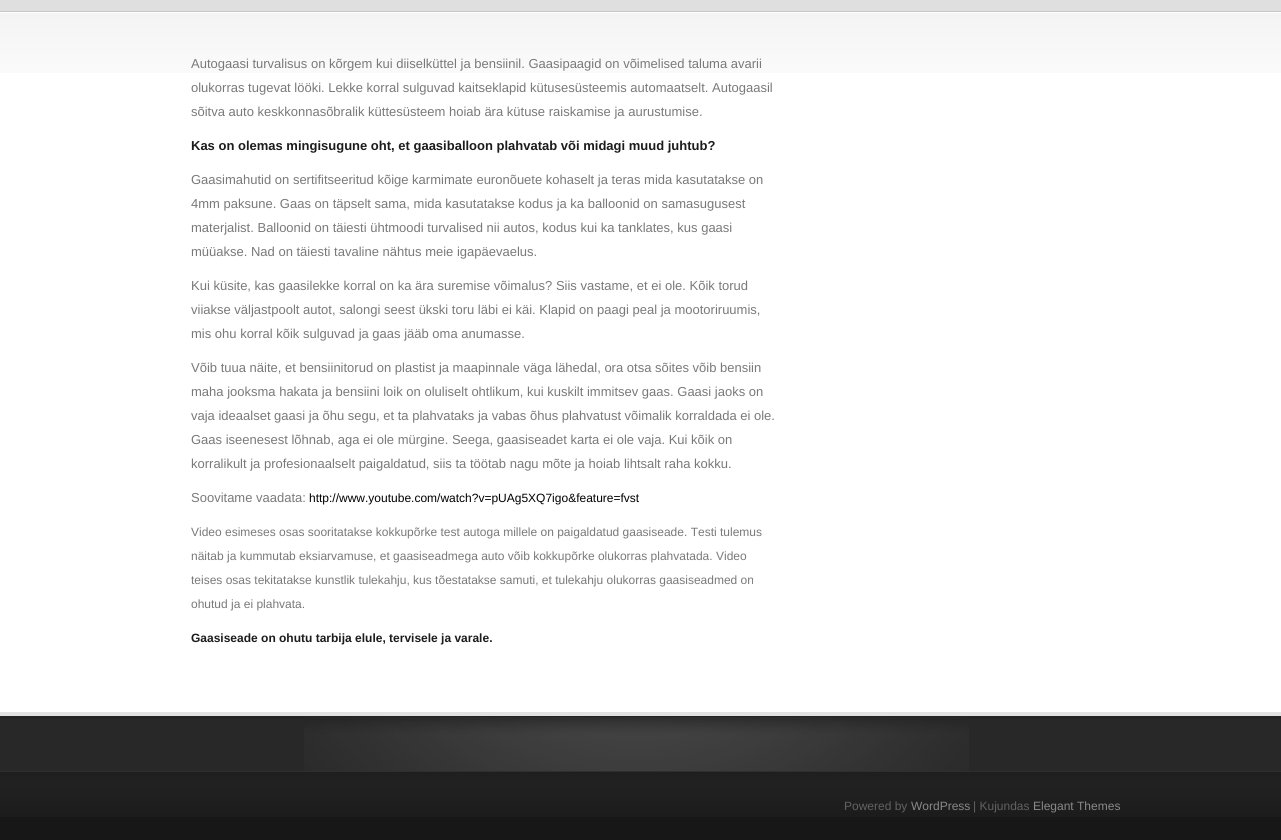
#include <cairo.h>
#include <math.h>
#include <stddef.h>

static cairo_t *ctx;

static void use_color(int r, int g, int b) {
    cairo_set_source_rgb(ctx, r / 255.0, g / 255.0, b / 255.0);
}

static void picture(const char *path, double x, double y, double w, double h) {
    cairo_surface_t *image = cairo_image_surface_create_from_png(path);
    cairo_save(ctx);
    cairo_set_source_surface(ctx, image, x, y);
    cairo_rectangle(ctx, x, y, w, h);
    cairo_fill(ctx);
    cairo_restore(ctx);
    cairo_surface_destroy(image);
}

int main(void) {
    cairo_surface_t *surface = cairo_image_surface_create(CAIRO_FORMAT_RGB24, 1281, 840);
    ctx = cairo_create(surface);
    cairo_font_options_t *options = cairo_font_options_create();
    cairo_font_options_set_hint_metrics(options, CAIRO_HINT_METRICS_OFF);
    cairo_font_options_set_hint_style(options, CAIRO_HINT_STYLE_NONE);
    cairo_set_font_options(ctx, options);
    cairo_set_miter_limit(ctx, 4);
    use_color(23, 23, 23);
    cairo_paint(ctx);
    use_color(223, 223, 223);
    cairo_rectangle(ctx, 0, 0, 1281, 11);
    cairo_fill(ctx);
    use_color(255, 255, 255);
    cairo_rectangle(ctx, 0, 12, 1281, 700);
    cairo_fill(ctx);
    picture("img1.png", 0, 13, 1281, 60);
    use_color(199, 199, 199);
    cairo_rectangle(ctx, 0, 11, 1281, 1);
    cairo_fill(ctx);
    cairo_select_font_face(ctx, "Liberation Sans", CAIRO_FONT_SLANT_NORMAL, CAIRO_FONT_WEIGHT_NORMAL);
    cairo_set_font_size(ctx, 13);
    use_color(121, 121, 121);
    cairo_move_to(ctx, 191, 68);
    cairo_show_text(ctx, "Autogaasi turvalisus on kõrgem kui diiselküttel ja bensiinil. Gaasipaagid on võimelised taluma avarii");
    cairo_move_to(ctx, 191, 92);
    cairo_show_text(ctx, "olukorras tugevat lööki. Lekke korral sulguvad kaitseklapid kütusesüsteemis automaatselt. Autogaasil");
    cairo_move_to(ctx, 191, 116);
    cairo_show_text(ctx, "sõitva auto keskkonnasõbralik küttesüsteem hoiab ära kütuse raiskamise ja aurustumise.");
    cairo_select_font_face(ctx, "Liberation Sans", CAIRO_FONT_SLANT_NORMAL, CAIRO_FONT_WEIGHT_BOLD);
    use_color(28, 28, 28);
    cairo_move_to(ctx, 191, 150);
    cairo_show_text(ctx, "Kas on olemas mingisugune oht, et gaasiballoon plahvatab või midagi muud juhtub?");
    cairo_select_font_face(ctx, "Liberation Sans", CAIRO_FONT_SLANT_NORMAL, CAIRO_FONT_WEIGHT_NORMAL);
    use_color(121, 121, 121);
    cairo_move_to(ctx, 191, 184);
    cairo_show_text(ctx, "Gaasimahutid on sertifitseeritud kõige karmimate euronõuete kohaselt ja teras mida kasutatakse on");
    cairo_move_to(ctx, 191, 208);
    cairo_show_text(ctx, "4mm paksune. Gaas on täpselt sama, mida kasutatakse kodus ja ka balloonid on samasugusest");
    cairo_move_to(ctx, 191, 232);
    cairo_show_text(ctx, "materjalist. Balloonid on täiesti ühtmoodi turvalised nii autos, kodus kui ka tanklates, kus gaasi");
    cairo_move_to(ctx, 191, 256);
    cairo_show_text(ctx, "müüakse. Nad on täiesti tavaline nähtus meie igapäevaelus.");
    cairo_move_to(ctx, 191, 290);
    cairo_show_text(ctx, "Kui küsite, kas gaasilekke korral on ka ära suremise võimalus? Siis vastame, et ei ole. Kõik torud");
    cairo_move_to(ctx, 191, 314);
    cairo_show_text(ctx, "viiakse väljastpoolt autot, salongi seest ükski toru läbi ei käi. Klapid on paagi peal ja mootoriruumis,");
    cairo_move_to(ctx, 191, 338);
    cairo_show_text(ctx, "mis ohu korral kõik sulguvad ja gaas jääb oma anumasse.");
    cairo_move_to(ctx, 191, 372);
    cairo_show_text(ctx, "Võib tuua näite, et bensiinitorud on plastist ja maapinnale väga lähedal, ora otsa sõites võib bensiin");
    cairo_move_to(ctx, 191, 396);
    cairo_show_text(ctx, "maha jooksma hakata ja bensiini loik on oluliselt ohtlikum, kui kuskilt immitsev gaas. Gaasi jaoks on");
    cairo_move_to(ctx, 191, 420);
    cairo_show_text(ctx, "vaja ideaalset gaasi ja õhu segu, et ta plahvataks ja vabas õhus plahvatust võimalik korraldada ei ole.");
    cairo_move_to(ctx, 191, 444);
    cairo_show_text(ctx, "Gaas iseenesest lõhnab, aga ei ole mürgine. Seega, gaasiseadet karta ei ole vaja. Kui kõik on");
    cairo_move_to(ctx, 191, 468);
    cairo_show_text(ctx, "korralikult ja profesionaalselt paigaldatud, siis ta töötab nagu mõte ja hoiab lihtsalt raha kokku.");
    cairo_move_to(ctx, 191, 502);
    cairo_show_text(ctx, "Soovitame vaadata:");
    cairo_set_font_size(ctx, 12);
    use_color(0, 0, 0);
    cairo_move_to(ctx, 309, 502);
    cairo_show_text(ctx, "http://www.youtube.com/watch?v=pUAg5XQ7igo&feature=fvst");
    use_color(121, 121, 121);
    cairo_move_to(ctx, 191, 536);
    cairo_show_text(ctx, "Video esimeses osas sooritatakse kokkupõrke test autoga millele on paigaldatud gaasiseade. Testi tulemus");
    cairo_move_to(ctx, 191, 560);
    cairo_show_text(ctx, "näitab ja kummutab eksiarvamuse, et gaasiseadmega auto võib kokkupõrke olukorras plahvatada. Video");
    cairo_move_to(ctx, 191, 584);
    cairo_show_text(ctx, "teises osas tekitatakse kunstlik tulekahju, kus tõestatakse samuti, et tulekahju olukorras gaasiseadmed on");
    cairo_move_to(ctx, 191, 608);
    cairo_show_text(ctx, "ohutud ja ei plahvata.");
    cairo_select_font_face(ctx, "Liberation Sans", CAIRO_FONT_SLANT_NORMAL, CAIRO_FONT_WEIGHT_BOLD);
    use_color(28, 28, 28);
    cairo_move_to(ctx, 191, 642);
    cairo_show_text(ctx, "Gaasiseade on ohutu tarbija elule, tervisele ja varale.");
    use_color(40, 40, 40);
    cairo_rectangle(ctx, 0, 719, 1281, 52);
    cairo_fill(ctx);
    use_color(35, 35, 35);
    cairo_rectangle(ctx, 0, 716, 1281, 3);
    cairo_fill(ctx);
    use_color(226, 226, 226);
    cairo_rectangle(ctx, 0, 712, 1281, 4);
    cairo_fill(ctx);
    picture("img2.png", 304, 717, 665, 54);
    picture("img3.png", 0, 772, 1281, 45);
    use_color(47, 47, 47);
    cairo_rectangle(ctx, 0, 771, 1281, 1);
    cairo_fill(ctx);
    cairo_select_font_face(ctx, "Liberation Sans", CAIRO_FONT_SLANT_NORMAL, CAIRO_FONT_WEIGHT_NORMAL);
    use_color(99, 97, 97);
    cairo_move_to(ctx, 844, 810);
    cairo_show_text(ctx, "Powered by");
    use_color(138, 137, 137);
    cairo_move_to(ctx, 911, 810);
    cairo_show_text(ctx, "WordPress");
    use_color(99, 97, 97);
    cairo_move_to(ctx, 973, 810);
    cairo_show_text(ctx, "| Kujundas");
    use_color(138, 137, 137);
    cairo_move_to(ctx, 1033, 810);
    cairo_show_text(ctx, "Elegant Themes");
    cairo_surface_write_to_png(surface, "result.png");
    cairo_font_options_destroy(options);
    cairo_destroy(ctx);
    cairo_surface_destroy(surface);
    return 0;
}
